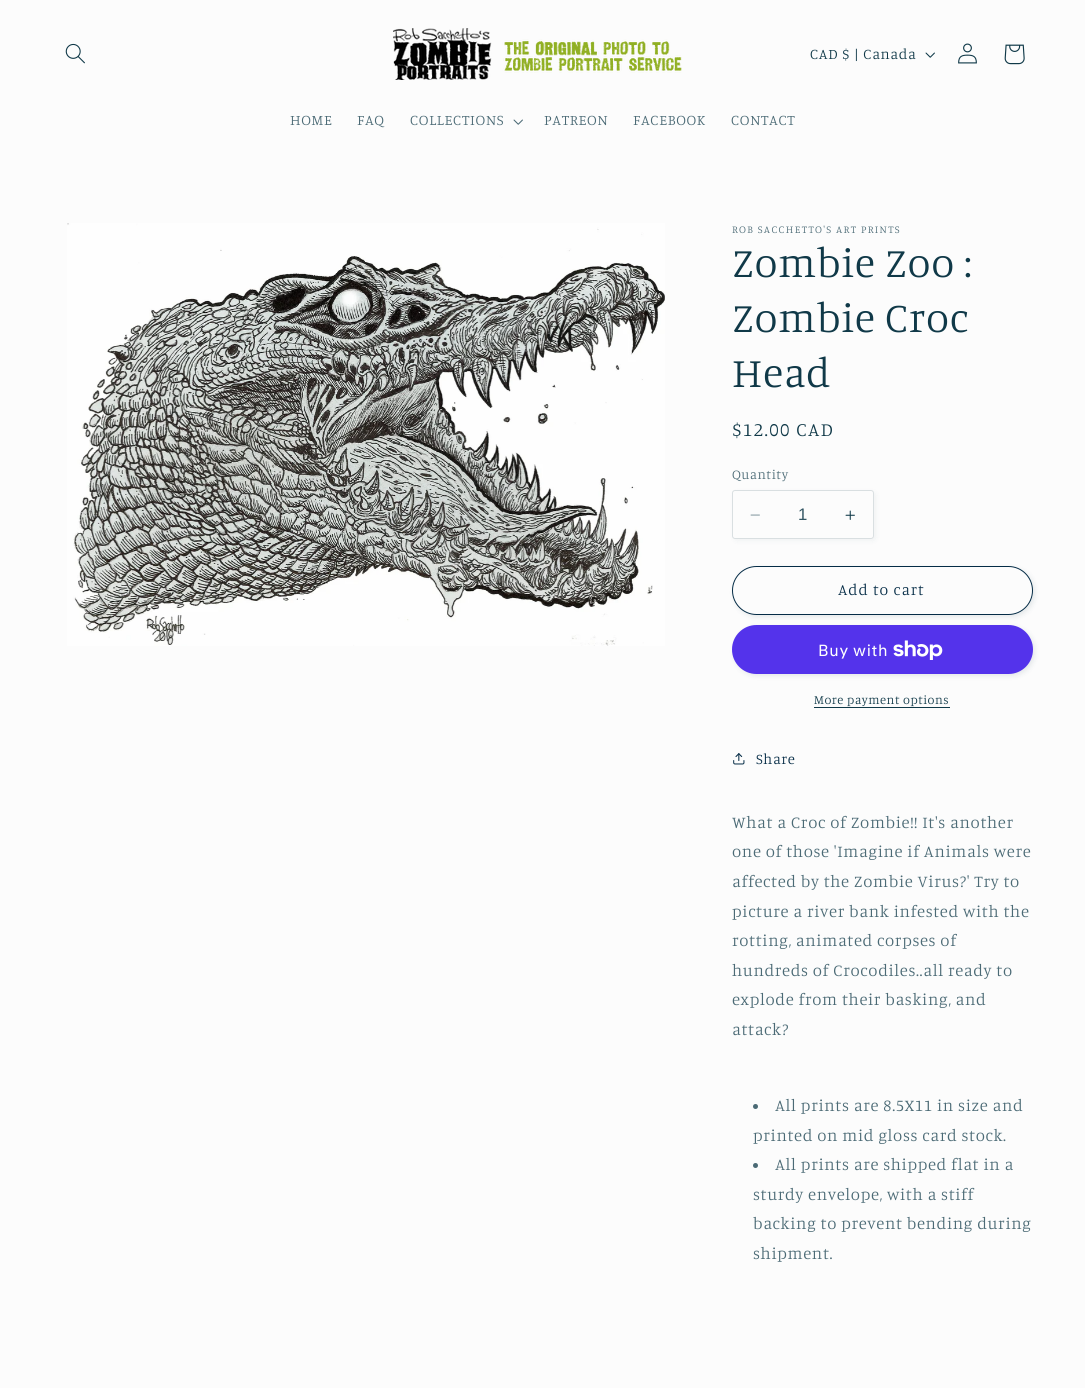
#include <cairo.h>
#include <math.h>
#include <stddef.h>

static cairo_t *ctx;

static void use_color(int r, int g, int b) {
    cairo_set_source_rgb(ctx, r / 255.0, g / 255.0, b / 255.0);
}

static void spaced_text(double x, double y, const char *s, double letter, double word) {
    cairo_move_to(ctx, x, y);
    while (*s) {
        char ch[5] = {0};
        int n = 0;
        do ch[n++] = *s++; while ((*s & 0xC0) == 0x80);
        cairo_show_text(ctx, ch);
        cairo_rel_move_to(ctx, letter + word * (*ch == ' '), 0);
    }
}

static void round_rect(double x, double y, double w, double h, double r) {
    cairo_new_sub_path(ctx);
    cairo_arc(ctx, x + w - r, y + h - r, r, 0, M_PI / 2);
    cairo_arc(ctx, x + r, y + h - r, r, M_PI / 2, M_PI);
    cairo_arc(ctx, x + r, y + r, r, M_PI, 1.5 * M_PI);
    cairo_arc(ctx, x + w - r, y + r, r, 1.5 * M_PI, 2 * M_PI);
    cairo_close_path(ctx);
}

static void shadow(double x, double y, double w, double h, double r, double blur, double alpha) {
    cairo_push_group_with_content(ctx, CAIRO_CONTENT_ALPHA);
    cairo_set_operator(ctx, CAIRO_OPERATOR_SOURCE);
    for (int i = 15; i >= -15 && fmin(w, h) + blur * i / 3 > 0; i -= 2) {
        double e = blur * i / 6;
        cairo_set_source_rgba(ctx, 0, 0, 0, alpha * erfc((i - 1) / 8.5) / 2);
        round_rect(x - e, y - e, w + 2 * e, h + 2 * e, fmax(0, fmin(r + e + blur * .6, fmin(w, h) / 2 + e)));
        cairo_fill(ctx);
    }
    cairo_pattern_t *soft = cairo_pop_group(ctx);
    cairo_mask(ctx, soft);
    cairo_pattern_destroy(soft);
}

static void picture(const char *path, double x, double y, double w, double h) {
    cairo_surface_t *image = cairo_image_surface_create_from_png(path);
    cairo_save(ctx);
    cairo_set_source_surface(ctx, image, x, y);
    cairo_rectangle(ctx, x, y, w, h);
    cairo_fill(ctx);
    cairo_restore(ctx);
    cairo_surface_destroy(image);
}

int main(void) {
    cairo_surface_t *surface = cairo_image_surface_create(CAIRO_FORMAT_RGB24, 1085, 1388);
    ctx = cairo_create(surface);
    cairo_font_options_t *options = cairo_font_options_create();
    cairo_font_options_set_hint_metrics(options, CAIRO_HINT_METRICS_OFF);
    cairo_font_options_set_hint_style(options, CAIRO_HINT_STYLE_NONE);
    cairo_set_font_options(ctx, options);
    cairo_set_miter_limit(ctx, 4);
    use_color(252, 252, 252);
    cairo_paint(ctx);
    picture("img1.png", 65, 43, 20, 21);
    picture("img2.png", 393, 28, 289, 52);
    cairo_select_font_face(ctx, "Manuale Light", CAIRO_FONT_SLANT_NORMAL, CAIRO_FONT_WEIGHT_NORMAL);
    cairo_set_font_size(ctx, 14.75);
    use_color(16, 57, 72);
    spaced_text(810, 59, "CAD $ | Canada", 0.65, 0);
    picture("img3.png", 925, 52, 10, 6);
    picture("img4.png", 958, 43, 19, 21);
    picture("img5.png", 1004, 44, 21, 21);
    use_color(75, 106, 117);
    spaced_text(290, 125, "HOME", 0.65, 0);
    spaced_text(357, 125, "FAQ", 0.65, 0);
    spaced_text(410, 125, "COLLECTIONS", 0.65, 0);
    picture("img6.png", 513, 119, 10, 6);
    spaced_text(544, 125, "PATREON", 0.65, 0);
    spaced_text(633, 125, "FACEBOOK", 0.65, 0);
    spaced_text(731, 125, "CONTACT", 0.65, 0);
    picture("img7.png", 67, 223, 598, 423);
    cairo_set_font_size(ctx, 10.5);
    spaced_text(732, 233, "ROB SACCHETTO'S ART PRINTS", 1.35, 0);
    cairo_set_font_size(ctx, 42);
    use_color(16, 57, 72);
    spaced_text(732, 277, "Zombie Zoo :", 0.65, 0);
    spaced_text(732, 332, "Zombie Croc", 0.65, 0);
    spaced_text(732, 387, "Head", 0.65, 0);
    cairo_set_font_size(ctx, 19);
    spaced_text(732, 436, "$12.00 CAD", 1.35, 0);
    cairo_set_font_size(ctx, 13.5);
    use_color(75, 106, 117);
    spaced_text(732, 479, "Quantity", 0.5, 0);
    use_color(16, 57, 72);
    shadow(734, 492, 142, 49, 3, 2.5, 0.05);
    use_color(252, 252, 252);
    round_rect(732, 490, 142, 49, 3);
    cairo_fill(ctx);
    picture("img8.png", 750, 514, 10, 2);
    picture("img9.png", 845, 510, 10, 10);
    round_rect(732.5, 490.5, 141, 48, 2.5);
    use_color(217, 223, 225);
    cairo_set_line_width(ctx, 1);
    cairo_stroke(ctx);
    cairo_select_font_face(ctx, "Liberation Sans", CAIRO_FONT_SLANT_NORMAL, CAIRO_FONT_WEIGHT_NORMAL);
    cairo_set_font_size(ctx, 16.75);
    use_color(51, 86, 99);
    cairo_move_to(ctx, 798, 520);
    cairo_show_text(ctx, "1");
    use_color(16, 57, 72);
    shadow(734, 568, 301, 49, 24.5, 2.5, 0.1);
    use_color(252, 252, 252);
    round_rect(732, 566, 301, 49, 24.5);
    cairo_fill(ctx);
    round_rect(732.5, 566.5, 300, 48, 24);
    cairo_stroke(ctx);
    round_rect(732.5, 566.5, 300, 48, 24);
    use_color(5, 44, 70);
    cairo_stroke(ctx);
    cairo_select_font_face(ctx, "Manuale Light", CAIRO_FONT_SLANT_NORMAL, CAIRO_FONT_WEIGHT_NORMAL);
    cairo_set_font_size(ctx, 15.75);
    spaced_text(838, 595, "Add to cart", 1, 0);
    use_color(16, 57, 72);
    shadow(734, 627, 301, 49, 24.5, 2.5, 0.1);
    use_color(84, 51, 235);
    round_rect(732, 625, 301, 49, 24.5);
    cairo_fill(ctx);
    cairo_select_font_face(ctx, "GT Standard", CAIRO_FONT_SLANT_NORMAL, CAIRO_FONT_WEIGHT_NORMAL);
    cairo_set_font_size(ctx, 16);
    use_color(255, 255, 255);
    spaced_text(818, 656, "Buy with", 0.65, 0);
    picture("img10.png", 893, 640, 50, 20);
    cairo_select_font_face(ctx, "Manuale Light", CAIRO_FONT_SLANT_NORMAL, CAIRO_FONT_WEIGHT_NORMAL);
    cairo_set_font_size(ctx, 12.6);
    use_color(16, 57, 72);
    spaced_text(814, 704, "More payment options", 0.5, 0);
    cairo_rectangle(ctx, 814, 707, 136, 1);
    cairo_fill(ctx);
    picture("img11.png", 733, 753, 12, 12);
    cairo_set_font_size(ctx, 14.75);
    use_color(5, 44, 70);
    spaced_text(756, 764, "Share", 0.65, 0);
    cairo_set_font_size(ctx, 16.75);
    use_color(75, 106, 117);
    spaced_text(732, 828, "What a Croc of Zombie!! It's another", 0.65, 0);
    spaced_text(732, 857, "one of those 'Imagine if Animals were", 0.65, 0);
    spaced_text(732, 887, "affected by the Zombie Virus?' Try to", 0.65, 0);
    spaced_text(732, 917, "picture a river bank infested with the", 0.65, 0);
    spaced_text(732, 946, "rotting, animated corpses of", 0.65, 0);
    spaced_text(732, 976, "hundreds of Crocodiles..all ready to", 0.65, 0);
    spaced_text(732, 1005, "explode from their basking, and", 0.65, 0);
    spaced_text(732, 1035, "attack?", 0.65, 0);
    cairo_new_path(ctx);
    cairo_arc(ctx, 755.5, 1106.5, 2.5, 0, 2 * M_PI);
    cairo_fill(ctx);
    spaced_text(775, 1111, "All prints are 8.5X11 in size and", 0.65, 0);
    spaced_text(753, 1141, "printed on mid gloss card stock.", 0.65, 0);
    cairo_new_path(ctx);
    cairo_arc(ctx, 755.5, 1165.5, 2.5, 0, 2 * M_PI);
    cairo_fill(ctx);
    spaced_text(775, 1170, "All prints are shipped flat in a", 0.65, 0);
    spaced_text(753, 1200, "sturdy envelope, with a stiff", 0.65, 0);
    spaced_text(753, 1229, "backing to prevent bending during", 0.65, 0);
    spaced_text(753, 1259, "shipment.", 0.65, 0);
    cairo_surface_write_to_png(surface, "result.png");
    cairo_font_options_destroy(options);
    cairo_destroy(ctx);
    cairo_surface_destroy(surface);
    return 0;
}
